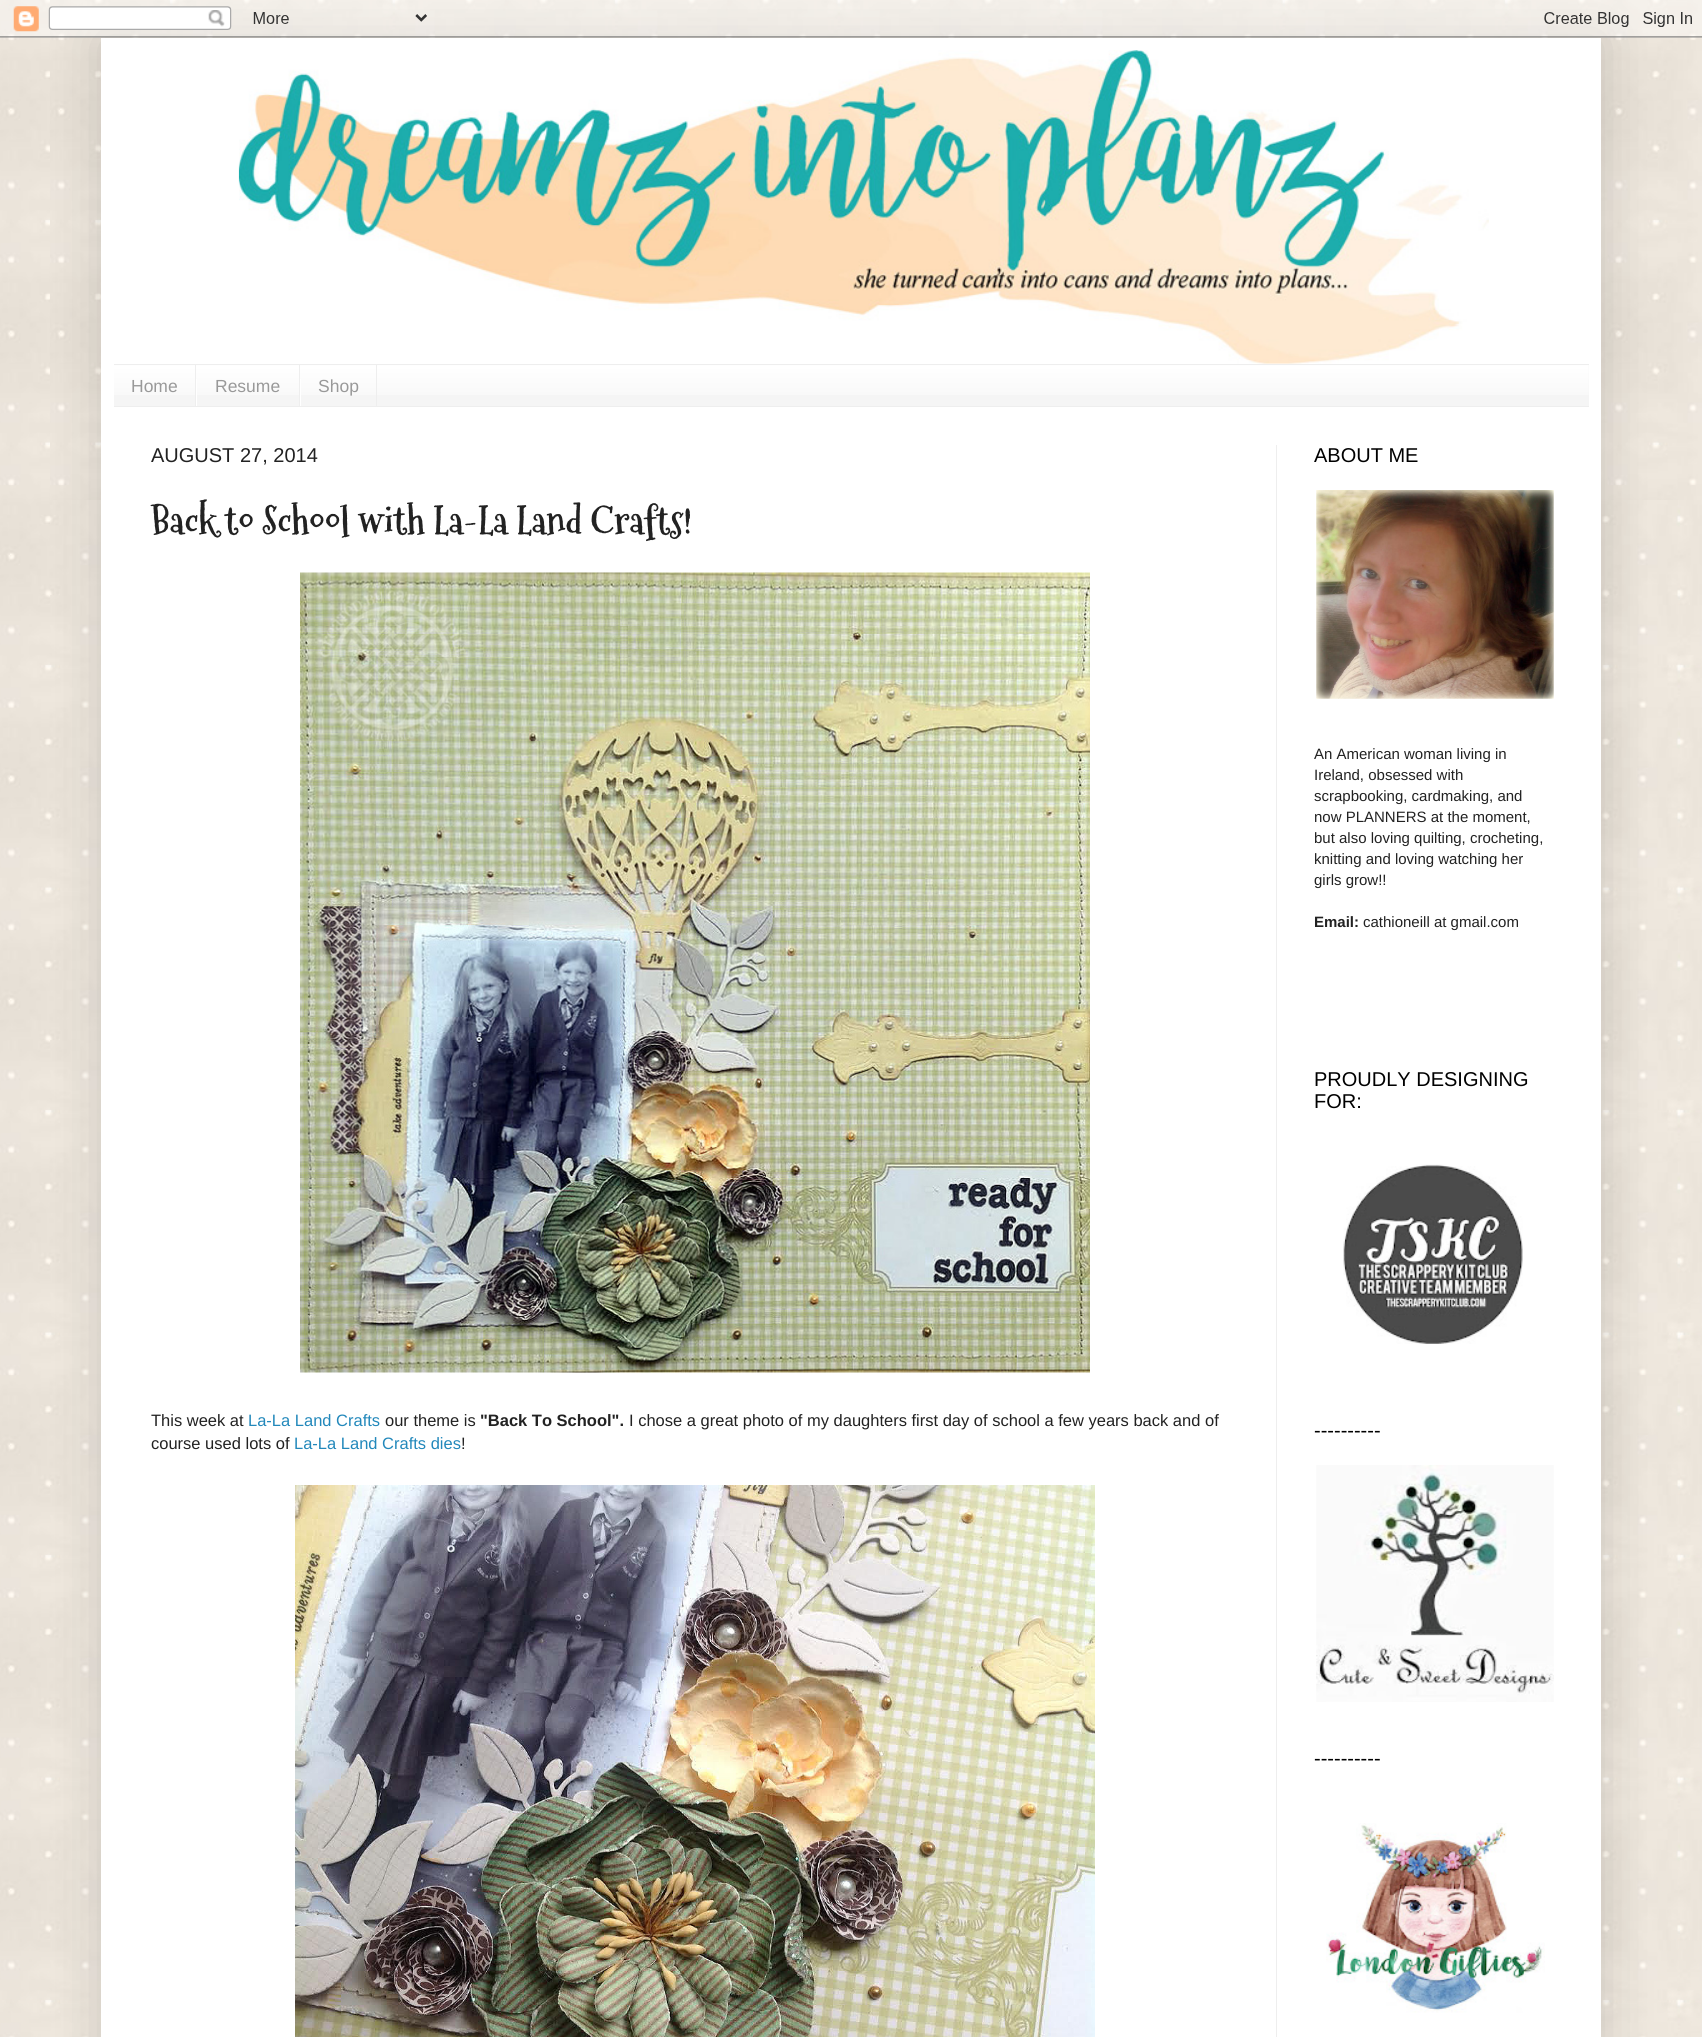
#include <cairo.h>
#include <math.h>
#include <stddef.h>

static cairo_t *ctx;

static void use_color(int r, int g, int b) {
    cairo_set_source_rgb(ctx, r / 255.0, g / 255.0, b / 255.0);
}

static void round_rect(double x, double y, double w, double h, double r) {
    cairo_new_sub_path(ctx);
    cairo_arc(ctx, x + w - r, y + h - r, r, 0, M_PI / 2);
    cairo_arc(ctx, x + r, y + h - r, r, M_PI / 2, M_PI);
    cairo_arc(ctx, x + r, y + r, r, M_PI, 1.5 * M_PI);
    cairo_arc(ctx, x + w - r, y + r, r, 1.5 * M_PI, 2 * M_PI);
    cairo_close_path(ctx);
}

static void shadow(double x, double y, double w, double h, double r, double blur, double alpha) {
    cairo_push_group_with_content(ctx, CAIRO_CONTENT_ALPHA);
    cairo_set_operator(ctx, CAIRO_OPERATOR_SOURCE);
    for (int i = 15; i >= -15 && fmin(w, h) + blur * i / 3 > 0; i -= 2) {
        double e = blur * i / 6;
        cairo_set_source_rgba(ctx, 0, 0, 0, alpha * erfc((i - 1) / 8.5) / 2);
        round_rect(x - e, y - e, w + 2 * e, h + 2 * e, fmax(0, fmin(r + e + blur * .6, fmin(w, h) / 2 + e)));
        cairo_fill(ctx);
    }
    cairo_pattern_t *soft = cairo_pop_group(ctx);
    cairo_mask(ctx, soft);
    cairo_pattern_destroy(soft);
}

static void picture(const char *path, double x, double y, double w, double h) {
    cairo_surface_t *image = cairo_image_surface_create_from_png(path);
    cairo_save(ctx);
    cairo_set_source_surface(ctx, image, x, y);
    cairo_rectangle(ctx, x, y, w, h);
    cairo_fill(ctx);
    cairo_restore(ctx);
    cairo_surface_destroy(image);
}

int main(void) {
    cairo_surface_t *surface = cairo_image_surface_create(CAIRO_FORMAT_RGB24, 1702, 2037);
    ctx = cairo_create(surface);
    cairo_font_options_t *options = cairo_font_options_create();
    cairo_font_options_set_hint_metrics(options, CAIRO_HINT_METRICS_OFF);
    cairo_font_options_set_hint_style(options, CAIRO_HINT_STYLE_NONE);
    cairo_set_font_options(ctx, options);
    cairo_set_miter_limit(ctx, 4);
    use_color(255, 255, 255);
    cairo_paint(ctx);
    picture("img1.png", 0, 0, 1702, 2037);
    picture("img2.png", 50, 0, 1652, 500);
    use_color(0, 0, 0);
    shadow(101, 38, 1500, 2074, 0, 25, 0.15);
    picture("img3.png", 0, 0, 1702, 38);
    use_color(255, 255, 255);
    cairo_rectangle(ctx, 101, 38, 1500, 1999);
    cairo_fill(ctx);
    picture("img4.png", 238, 50, 1251, 314);
    use_color(245, 245, 245);
    cairo_rectangle(ctx, 114, 365, 1475, 41);
    cairo_fill(ctx);
    picture("img5.png", 114, 365, 1475, 30);
    use_color(238, 238, 238);
    cairo_rectangle(ctx, 114, 364, 1475, 1);
    cairo_fill(ctx);
    cairo_rectangle(ctx, 114, 406, 1475, 1);
    cairo_fill(ctx);
    cairo_rectangle(ctx, 195, 365, 1, 41);
    cairo_fill(ctx);
    cairo_select_font_face(ctx, "Liberation Sans", CAIRO_FONT_SLANT_NORMAL, CAIRO_FONT_WEIGHT_NORMAL);
    cairo_set_font_size(ctx, 17.5);
    use_color(153, 153, 153);
    cairo_move_to(ctx, 131, 392);
    cairo_show_text(ctx, "Home");
    use_color(238, 238, 238);
    cairo_rectangle(ctx, 299, 365, 1, 41);
    cairo_fill(ctx);
    use_color(255, 255, 255);
    cairo_rectangle(ctx, 196, 379, 1, 27);
    cairo_fill(ctx);
    use_color(153, 153, 153);
    cairo_move_to(ctx, 215, 392);
    cairo_show_text(ctx, "Resume");
    use_color(238, 238, 238);
    cairo_rectangle(ctx, 376, 365, 1, 41);
    cairo_fill(ctx);
    use_color(255, 255, 255);
    cairo_rectangle(ctx, 300, 379, 1, 27);
    cairo_fill(ctx);
    use_color(153, 153, 153);
    cairo_move_to(ctx, 318, 392);
    cairo_show_text(ctx, "Shop");
    use_color(238, 238, 238);
    cairo_rectangle(ctx, 1276, 445, 1, 1592);
    cairo_fill(ctx);
    cairo_set_font_size(ctx, 20);
    use_color(34, 34, 34);
    cairo_move_to(ctx, 151, 462);
    cairo_show_text(ctx, "AUGUST 27, 2014");
    cairo_select_font_face(ctx, "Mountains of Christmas", CAIRO_FONT_SLANT_NORMAL, CAIRO_FONT_WEIGHT_BOLD);
    cairo_set_font_size(ctx, 37.5);
    cairo_move_to(ctx, 151, 534);
    cairo_show_text(ctx, "Back to School with La-La Land Crafts!");
    picture("img6.png", 300, 572, 790, 801);
    cairo_select_font_face(ctx, "Liberation Sans", CAIRO_FONT_SLANT_NORMAL, CAIRO_FONT_WEIGHT_NORMAL);
    cairo_set_font_size(ctx, 16.5);
    cairo_move_to(ctx, 151, 1426);
    cairo_show_text(ctx, "This week at");
    use_color(34, 136, 187);
    cairo_move_to(ctx, 248, 1426);
    cairo_show_text(ctx, "La-La Land Crafts");
    use_color(34, 34, 34);
    cairo_move_to(ctx, 385, 1426);
    cairo_show_text(ctx, "our theme is");
    cairo_select_font_face(ctx, "Liberation Sans", CAIRO_FONT_SLANT_NORMAL, CAIRO_FONT_WEIGHT_BOLD);
    cairo_move_to(ctx, 480, 1426);
    cairo_show_text(ctx, "\"Back To School\".");
    cairo_select_font_face(ctx, "Liberation Sans", CAIRO_FONT_SLANT_NORMAL, CAIRO_FONT_WEIGHT_NORMAL);
    cairo_move_to(ctx, 629, 1426);
    cairo_show_text(ctx, "I chose a great photo of my daughters first day of school a few years back and of");
    cairo_move_to(ctx, 151, 1449);
    cairo_show_text(ctx, "course used lots of");
    use_color(34, 136, 187);
    cairo_move_to(ctx, 294, 1449);
    cairo_show_text(ctx, "La-La Land Crafts dies");
    use_color(34, 34, 34);
    cairo_move_to(ctx, 461, 1449);
    cairo_show_text(ctx, "!");
    picture("img7.png", 295, 1485, 800, 552);
    cairo_set_font_size(ctx, 20);
    use_color(0, 0, 0);
    cairo_move_to(ctx, 1314, 462);
    cairo_show_text(ctx, "ABOUT ME");
    picture("img8.png", 1316, 490, 238, 209);
    cairo_set_font_size(ctx, 15);
    use_color(34, 34, 34);
    cairo_move_to(ctx, 1314, 759);
    cairo_show_text(ctx, "An American woman living in");
    cairo_move_to(ctx, 1314, 780);
    cairo_show_text(ctx, "Ireland, obsessed with");
    cairo_move_to(ctx, 1314, 801);
    cairo_show_text(ctx, "scrapbooking, cardmaking, and");
    cairo_move_to(ctx, 1314, 822);
    cairo_show_text(ctx, "now PLANNERS at the moment,");
    cairo_move_to(ctx, 1314, 843);
    cairo_show_text(ctx, "but also loving quilting, crocheting,");
    cairo_move_to(ctx, 1314, 864);
    cairo_show_text(ctx, "knitting and loving watching her");
    cairo_move_to(ctx, 1314, 885);
    cairo_show_text(ctx, "girls grow!!");
    cairo_select_font_face(ctx, "Liberation Sans", CAIRO_FONT_SLANT_NORMAL, CAIRO_FONT_WEIGHT_BOLD);
    cairo_move_to(ctx, 1314, 927);
    cairo_show_text(ctx, "Email:");
    cairo_select_font_face(ctx, "Liberation Sans", CAIRO_FONT_SLANT_NORMAL, CAIRO_FONT_WEIGHT_NORMAL);
    cairo_move_to(ctx, 1363, 927);
    cairo_show_text(ctx, "cathioneill at gmail.com");
    cairo_set_font_size(ctx, 20);
    use_color(0, 0, 0);
    cairo_move_to(ctx, 1314, 1086);
    cairo_show_text(ctx, "PROUDLY DESIGNING");
    cairo_move_to(ctx, 1314, 1108);
    cairo_show_text(ctx, "FOR:");
    picture("img9.png", 1343, 1164, 180, 180);
    cairo_move_to(ctx, 1314, 1437);
    cairo_show_text(ctx, "----------");
    picture("img10.png", 1316, 1465, 238, 237);
    cairo_move_to(ctx, 1314, 1765);
    cairo_show_text(ctx, "----------");
    picture("img11.png", 1326, 1823, 219, 190);
    cairo_surface_write_to_png(surface, "result.png");
    cairo_font_options_destroy(options);
    cairo_destroy(ctx);
    cairo_surface_destroy(surface);
    return 0;
}
